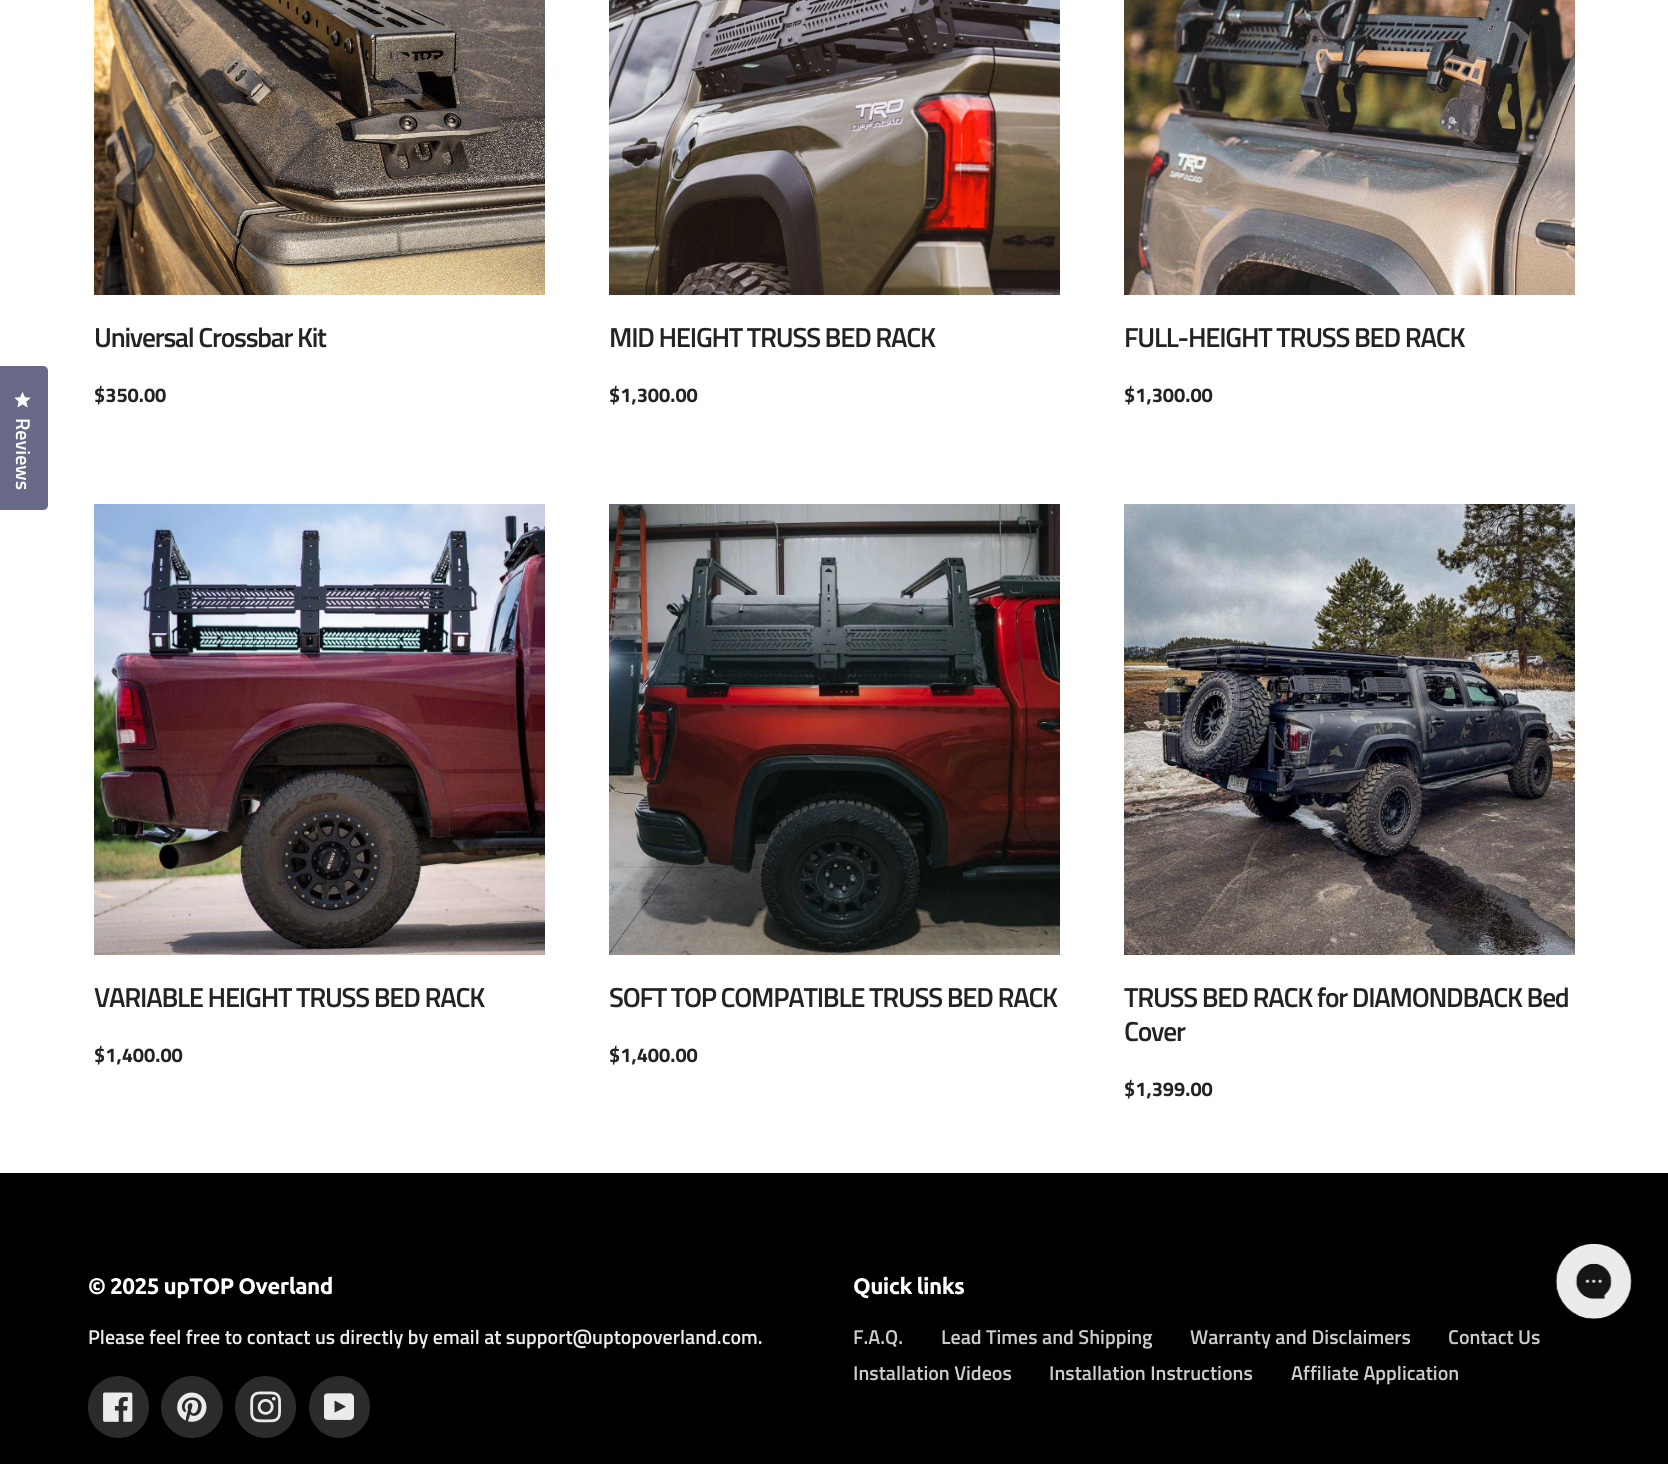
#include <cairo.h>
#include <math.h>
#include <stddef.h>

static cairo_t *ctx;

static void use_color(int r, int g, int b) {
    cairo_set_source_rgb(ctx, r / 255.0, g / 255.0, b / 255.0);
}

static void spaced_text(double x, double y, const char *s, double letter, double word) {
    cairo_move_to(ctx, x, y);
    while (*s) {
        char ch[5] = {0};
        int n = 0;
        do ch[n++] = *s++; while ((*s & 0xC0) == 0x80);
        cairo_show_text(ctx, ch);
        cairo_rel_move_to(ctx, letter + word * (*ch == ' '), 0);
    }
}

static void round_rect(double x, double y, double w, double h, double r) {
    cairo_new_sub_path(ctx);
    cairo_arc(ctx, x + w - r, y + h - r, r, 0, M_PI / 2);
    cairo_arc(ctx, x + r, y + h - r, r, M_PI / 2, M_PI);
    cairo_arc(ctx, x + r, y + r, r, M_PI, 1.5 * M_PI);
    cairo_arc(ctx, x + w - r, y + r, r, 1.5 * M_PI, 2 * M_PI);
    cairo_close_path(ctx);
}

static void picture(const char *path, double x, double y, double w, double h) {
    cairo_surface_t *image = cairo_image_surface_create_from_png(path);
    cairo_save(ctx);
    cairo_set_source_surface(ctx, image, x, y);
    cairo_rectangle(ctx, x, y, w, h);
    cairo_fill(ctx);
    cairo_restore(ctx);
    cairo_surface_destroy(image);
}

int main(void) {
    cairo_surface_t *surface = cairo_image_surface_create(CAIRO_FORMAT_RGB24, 1668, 1464);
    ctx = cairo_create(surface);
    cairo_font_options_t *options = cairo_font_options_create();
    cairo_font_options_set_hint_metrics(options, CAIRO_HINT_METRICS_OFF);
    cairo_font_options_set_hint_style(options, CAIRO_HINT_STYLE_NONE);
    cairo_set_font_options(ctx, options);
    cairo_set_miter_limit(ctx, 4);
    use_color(255, 255, 255);
    cairo_paint(ctx);
    use_color(103, 105, 134);
    cairo_new_path(ctx);
    cairo_move_to(ctx, -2, 366);
    cairo_line_to(ctx, 43, 366);
    cairo_curve_to(ctx, 46, 366, 48, 368, 48, 371);
    cairo_line_to(ctx, 48, 505);
    cairo_curve_to(ctx, 48, 508, 46, 510, 43, 510);
    cairo_line_to(ctx, -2, 510);
    cairo_close_path(ctx);
    cairo_fill(ctx);
    picture("img1.png", 14, 391, 17, 17);
    cairo_select_font_face(ctx, "Titillium Web SemiBold", CAIRO_FONT_SLANT_NORMAL, CAIRO_FONT_WEIGHT_NORMAL);
    cairo_set_font_size(ctx, 20);
    use_color(255, 255, 255);
    cairo_save(ctx);
    cairo_translate(ctx, 16, 418);
    cairo_rotate(ctx, 90.1 * M_PI / 180);
    cairo_move_to(ctx, 0, 0);
    cairo_show_text(ctx, "Reviews");
    cairo_restore(ctx);
    picture("img2.png", 94, 0, 451, 295);
    cairo_set_font_size(ctx, 27.5);
    use_color(35, 35, 35);
    spaced_text(94, 347, "Universal Crossbar Kit", -1.25, 0);
    cairo_select_font_face(ctx, "Titillium Web", CAIRO_FONT_SLANT_NORMAL, CAIRO_FONT_WEIGHT_BOLD);
    cairo_set_font_size(ctx, 20);
    cairo_move_to(ctx, 94, 402);
    cairo_show_text(ctx, "$350.00");
    picture("img3.png", 609, 0, 451, 295);
    cairo_select_font_face(ctx, "Titillium Web SemiBold", CAIRO_FONT_SLANT_NORMAL, CAIRO_FONT_WEIGHT_NORMAL);
    cairo_set_font_size(ctx, 27.5);
    spaced_text(609, 347, "MID HEIGHT TRUSS BED RACK", -1.25, 0);
    cairo_select_font_face(ctx, "Titillium Web", CAIRO_FONT_SLANT_NORMAL, CAIRO_FONT_WEIGHT_BOLD);
    cairo_set_font_size(ctx, 20);
    cairo_move_to(ctx, 609, 402);
    cairo_show_text(ctx, "$1,300.00");
    picture("img4.png", 1124, 0, 451, 295);
    cairo_select_font_face(ctx, "Titillium Web SemiBold", CAIRO_FONT_SLANT_NORMAL, CAIRO_FONT_WEIGHT_NORMAL);
    cairo_set_font_size(ctx, 27.5);
    spaced_text(1124, 347, "FULL-HEIGHT TRUSS BED RACK", -1.25, 0);
    cairo_select_font_face(ctx, "Titillium Web", CAIRO_FONT_SLANT_NORMAL, CAIRO_FONT_WEIGHT_BOLD);
    cairo_set_font_size(ctx, 20);
    cairo_move_to(ctx, 1124, 402);
    cairo_show_text(ctx, "$1,300.00");
    picture("img5.png", 94, 504, 451, 451);
    cairo_select_font_face(ctx, "Titillium Web SemiBold", CAIRO_FONT_SLANT_NORMAL, CAIRO_FONT_WEIGHT_NORMAL);
    cairo_set_font_size(ctx, 27.5);
    spaced_text(94, 1007, "VARIABLE HEIGHT TRUSS BED RACK", -1.25, 0);
    cairo_select_font_face(ctx, "Titillium Web", CAIRO_FONT_SLANT_NORMAL, CAIRO_FONT_WEIGHT_BOLD);
    cairo_set_font_size(ctx, 20);
    cairo_move_to(ctx, 94, 1062);
    cairo_show_text(ctx, "$1,400.00");
    picture("img6.png", 609, 504, 451, 451);
    cairo_select_font_face(ctx, "Titillium Web SemiBold", CAIRO_FONT_SLANT_NORMAL, CAIRO_FONT_WEIGHT_NORMAL);
    cairo_set_font_size(ctx, 27.5);
    spaced_text(609, 1007, "SOFT TOP COMPATIBLE TRUSS BED RACK", -1.25, 0);
    cairo_select_font_face(ctx, "Titillium Web", CAIRO_FONT_SLANT_NORMAL, CAIRO_FONT_WEIGHT_BOLD);
    cairo_set_font_size(ctx, 20);
    cairo_move_to(ctx, 609, 1062);
    cairo_show_text(ctx, "$1,400.00");
    picture("img7.png", 1124, 504, 451, 451);
    cairo_select_font_face(ctx, "Titillium Web SemiBold", CAIRO_FONT_SLANT_NORMAL, CAIRO_FONT_WEIGHT_NORMAL);
    cairo_set_font_size(ctx, 27.5);
    spaced_text(1124, 1007, "TRUSS BED RACK for DIAMONDBACK Bed", -1.25, 0);
    spaced_text(1124, 1041, "Cover", -1.25, 0);
    cairo_select_font_face(ctx, "Titillium Web", CAIRO_FONT_SLANT_NORMAL, CAIRO_FONT_WEIGHT_BOLD);
    cairo_set_font_size(ctx, 20);
    cairo_move_to(ctx, 1124, 1096);
    cairo_show_text(ctx, "$1,399.00");
    use_color(0, 0, 0);
    cairo_rectangle(ctx, 0, 1173, 1668, 291);
    cairo_fill(ctx);
    cairo_select_font_face(ctx, "Ubuntu", CAIRO_FONT_SLANT_NORMAL, CAIRO_FONT_WEIGHT_BOLD);
    cairo_set_font_size(ctx, 22.5);
    use_color(255, 255, 255);
    spaced_text(88, 1294, "© 2025 upTOP Overland", -0.6, 0);
    cairo_select_font_face(ctx, "Titillium Web SemiBold", CAIRO_FONT_SLANT_NORMAL, CAIRO_FONT_WEIGHT_NORMAL);
    cairo_set_font_size(ctx, 20);
    use_color(235, 235, 235);
    cairo_move_to(ctx, 88, 1344);
    cairo_show_text(ctx, "Please feel free to contact us directly by email at support@uptopoverland.com.");
    use_color(43, 43, 43);
    round_rect(88, 1376, 61, 62, 30.5);
    cairo_fill(ctx);
    picture("img8.png", 103, 1392, 30, 30);
    cairo_arc(ctx, 192, 1407, 31, 0, 2 * M_PI);
    cairo_fill(ctx);
    picture("img9.png", 177, 1392, 30, 30);
    round_rect(235, 1376, 61, 62, 30.5);
    cairo_fill(ctx);
    picture("img10.png", 250, 1391, 31, 32);
    round_rect(309, 1376, 61, 62, 30.5);
    cairo_fill(ctx);
    picture("img11.png", 324, 1393, 30, 27);
    cairo_select_font_face(ctx, "Ubuntu", CAIRO_FONT_SLANT_NORMAL, CAIRO_FONT_WEIGHT_BOLD);
    cairo_set_font_size(ctx, 22.5);
    use_color(255, 255, 255);
    spaced_text(853, 1294, "Quick links", -0.6, 0);
    cairo_select_font_face(ctx, "Titillium Web SemiBold", CAIRO_FONT_SLANT_NORMAL, CAIRO_FONT_WEIGHT_NORMAL);
    cairo_set_font_size(ctx, 20);
    use_color(204, 204, 204);
    cairo_move_to(ctx, 853, 1344);
    cairo_show_text(ctx, "F.A.Q.");
    cairo_move_to(ctx, 941, 1344);
    cairo_show_text(ctx, "Lead Times and Shipping");
    cairo_move_to(ctx, 1190, 1344);
    cairo_show_text(ctx, "Warranty and Disclaimers");
    cairo_move_to(ctx, 1448, 1344);
    cairo_show_text(ctx, "Contact Us");
    cairo_move_to(ctx, 853, 1380);
    cairo_show_text(ctx, "Installation Videos");
    cairo_move_to(ctx, 1049, 1380);
    cairo_show_text(ctx, "Installation Instructions");
    cairo_move_to(ctx, 1291, 1380);
    cairo_show_text(ctx, "Affiliate Application");
    picture("img12.png", 1555, 1243, 77, 76);
    cairo_surface_write_to_png(surface, "result.png");
    cairo_font_options_destroy(options);
    cairo_destroy(ctx);
    cairo_surface_destroy(surface);
    return 0;
}
